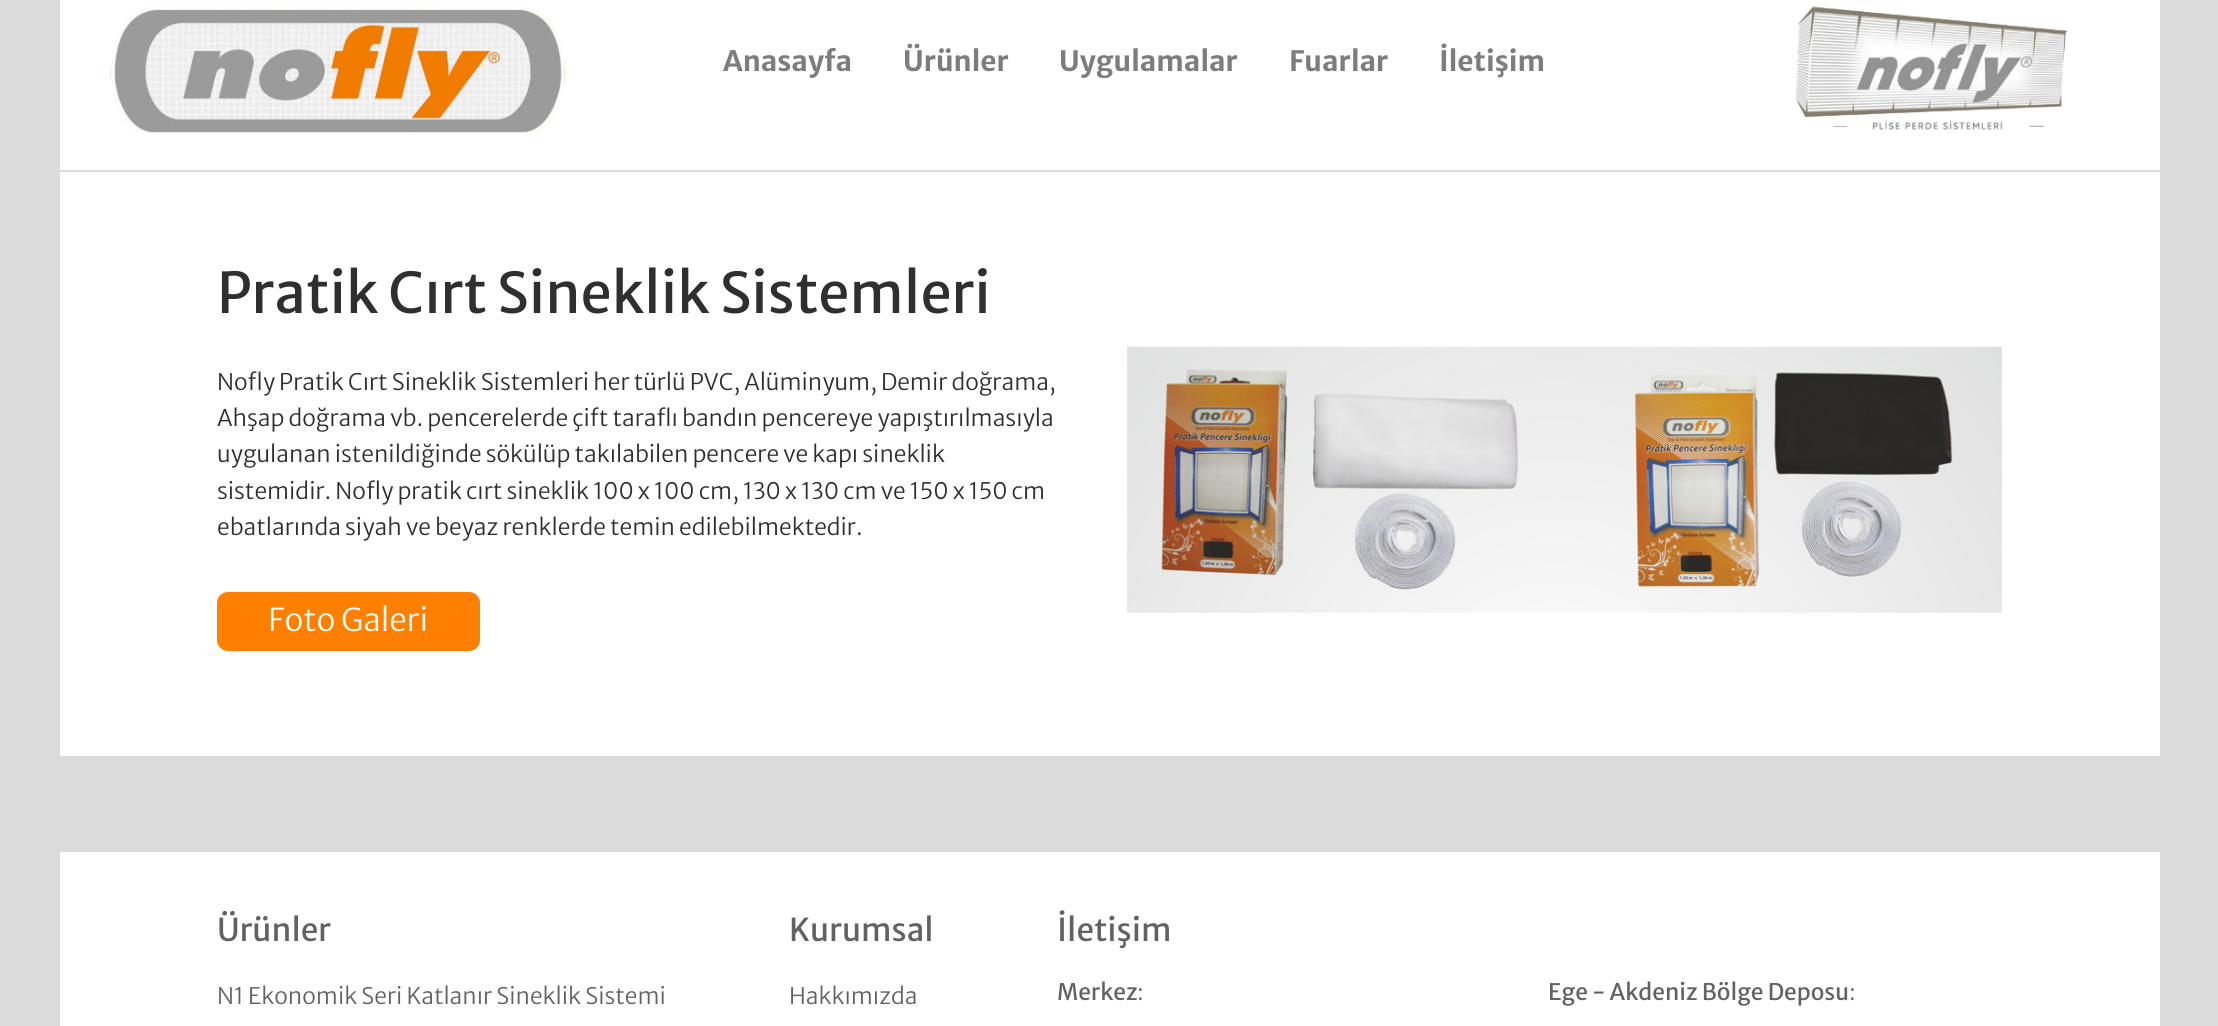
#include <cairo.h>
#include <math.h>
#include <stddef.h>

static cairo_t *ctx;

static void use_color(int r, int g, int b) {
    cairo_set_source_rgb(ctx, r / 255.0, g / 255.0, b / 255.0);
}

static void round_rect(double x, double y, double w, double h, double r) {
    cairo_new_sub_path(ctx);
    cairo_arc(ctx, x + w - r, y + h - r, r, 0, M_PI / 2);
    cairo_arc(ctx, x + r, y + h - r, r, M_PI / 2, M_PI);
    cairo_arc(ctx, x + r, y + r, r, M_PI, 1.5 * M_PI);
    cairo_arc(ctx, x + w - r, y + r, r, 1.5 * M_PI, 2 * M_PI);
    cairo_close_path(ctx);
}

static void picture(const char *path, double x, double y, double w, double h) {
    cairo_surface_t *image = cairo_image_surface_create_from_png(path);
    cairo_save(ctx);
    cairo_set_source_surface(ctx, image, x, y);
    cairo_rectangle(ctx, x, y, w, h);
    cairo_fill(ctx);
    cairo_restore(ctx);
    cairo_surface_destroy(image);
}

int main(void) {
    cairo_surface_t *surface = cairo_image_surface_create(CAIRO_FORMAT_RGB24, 2218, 1026);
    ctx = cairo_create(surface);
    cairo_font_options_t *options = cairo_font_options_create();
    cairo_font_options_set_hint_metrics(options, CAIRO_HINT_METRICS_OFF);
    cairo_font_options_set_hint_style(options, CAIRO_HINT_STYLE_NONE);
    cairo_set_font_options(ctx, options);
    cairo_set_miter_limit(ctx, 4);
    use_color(219, 219, 219);
    cairo_paint(ctx);
    use_color(255, 255, 255);
    cairo_rectangle(ctx, 60, 0, 2100, 170);
    cairo_fill(ctx);
    picture("img1.png", 110, 6, 456, 127);
    cairo_select_font_face(ctx, "Merriweather Sans", CAIRO_FONT_SLANT_NORMAL, CAIRO_FONT_WEIGHT_BOLD);
    cairo_set_font_size(ctx, 28);
    use_color(125, 125, 125);
    cairo_move_to(ctx, 723, 71);
    cairo_show_text(ctx, "Anasayfa");
    cairo_move_to(ctx, 903, 71);
    cairo_show_text(ctx, "Ürünler");
    cairo_move_to(ctx, 1059, 71);
    cairo_show_text(ctx, "Uygulamalar");
    cairo_move_to(ctx, 1289, 71);
    cairo_show_text(ctx, "Fuarlar");
    cairo_move_to(ctx, 1439, 71);
    cairo_show_text(ctx, "İletişim");
    picture("img2.png", 1795, 6, 272, 124);
    use_color(255, 255, 255);
    cairo_rectangle(ctx, 60, 172, 2100, 584);
    cairo_fill(ctx);
    cairo_select_font_face(ctx, "Merriweather Sans", CAIRO_FONT_SLANT_NORMAL, CAIRO_FONT_WEIGHT_NORMAL);
    cairo_set_font_size(ctx, 56);
    use_color(47, 47, 47);
    cairo_move_to(ctx, 217, 313);
    cairo_show_text(ctx, "Pratik Cırt Sineklik Sistemleri");
    cairo_select_font_face(ctx, "Merriweather Sans Light", CAIRO_FONT_SLANT_NORMAL, CAIRO_FONT_WEIGHT_NORMAL);
    cairo_set_font_size(ctx, 22.75);
    cairo_move_to(ctx, 217, 390);
    cairo_show_text(ctx, "Nofly Pratik Cırt Sineklik Sistemleri her türlü PVC, Alüminyum, Demir doğrama,");
    cairo_move_to(ctx, 217, 426);
    cairo_show_text(ctx, "Ahşap doğrama vb. pencerelerde çift taraflı bandın pencereye yapıştırılmasıyla");
    cairo_move_to(ctx, 217, 462);
    cairo_show_text(ctx, "uygulanan istenildiğinde sökülüp takılabilen pencere ve kapı sineklik");
    cairo_move_to(ctx, 217, 499);
    cairo_show_text(ctx, "sistemidir. Nofly pratik cırt sineklik 100 x 100 cm, 130 x 130 cm ve 150 x 150 cm");
    cairo_move_to(ctx, 217, 535);
    cairo_show_text(ctx, "ebatlarında siyah ve beyaz renklerde temin edilebilmektedir.");
    use_color(255, 128, 0);
    round_rect(217, 592, 263, 59, 11);
    cairo_fill(ctx);
    cairo_set_font_size(ctx, 31.5);
    use_color(255, 255, 255);
    cairo_move_to(ctx, 268, 631);
    cairo_show_text(ctx, "Foto Galeri");
    picture("img3.png", 1127, 346, 875, 267);
    cairo_rectangle(ctx, 60, 852, 2100, 174);
    cairo_fill(ctx);
    cairo_select_font_face(ctx, "Merriweather Sans", CAIRO_FONT_SLANT_NORMAL, CAIRO_FONT_WEIGHT_NORMAL);
    use_color(98, 98, 98);
    cairo_move_to(ctx, 217, 941);
    cairo_show_text(ctx, "Ürünler");
    cairo_select_font_face(ctx, "Merriweather Sans Light", CAIRO_FONT_SLANT_NORMAL, CAIRO_FONT_WEIGHT_NORMAL);
    cairo_set_font_size(ctx, 22.75);
    cairo_move_to(ctx, 217, 1004);
    cairo_show_text(ctx, "N1 Ekonomik Seri Katlanır Sineklik Sistemi");
    cairo_select_font_face(ctx, "Merriweather Sans", CAIRO_FONT_SLANT_NORMAL, CAIRO_FONT_WEIGHT_NORMAL);
    cairo_set_font_size(ctx, 31.5);
    cairo_move_to(ctx, 789, 941);
    cairo_show_text(ctx, "Kurumsal");
    cairo_select_font_face(ctx, "Merriweather Sans Light", CAIRO_FONT_SLANT_NORMAL, CAIRO_FONT_WEIGHT_NORMAL);
    cairo_set_font_size(ctx, 22.75);
    cairo_move_to(ctx, 789, 1004);
    cairo_show_text(ctx, "Hakkımızda");
    cairo_select_font_face(ctx, "Merriweather Sans", CAIRO_FONT_SLANT_NORMAL, CAIRO_FONT_WEIGHT_NORMAL);
    cairo_set_font_size(ctx, 31.5);
    cairo_move_to(ctx, 1057, 941);
    cairo_show_text(ctx, "İletişim");
    cairo_set_font_size(ctx, 22.75);
    cairo_move_to(ctx, 1057, 1000);
    cairo_show_text(ctx, "Merkez");
    cairo_select_font_face(ctx, "Merriweather Sans Light", CAIRO_FONT_SLANT_NORMAL, CAIRO_FONT_WEIGHT_NORMAL);
    cairo_move_to(ctx, 1137, 1000);
    cairo_show_text(ctx, ":");
    cairo_select_font_face(ctx, "Merriweather Sans", CAIRO_FONT_SLANT_NORMAL, CAIRO_FONT_WEIGHT_NORMAL);
    cairo_move_to(ctx, 1548, 1000);
    cairo_show_text(ctx, "Ege - Akdeniz Bölge Deposu");
    cairo_select_font_face(ctx, "Merriweather Sans Light", CAIRO_FONT_SLANT_NORMAL, CAIRO_FONT_WEIGHT_NORMAL);
    cairo_move_to(ctx, 1849, 1000);
    cairo_show_text(ctx, ":");
    cairo_surface_write_to_png(surface, "result.png");
    cairo_font_options_destroy(options);
    cairo_destroy(ctx);
    cairo_surface_destroy(surface);
    return 0;
}
